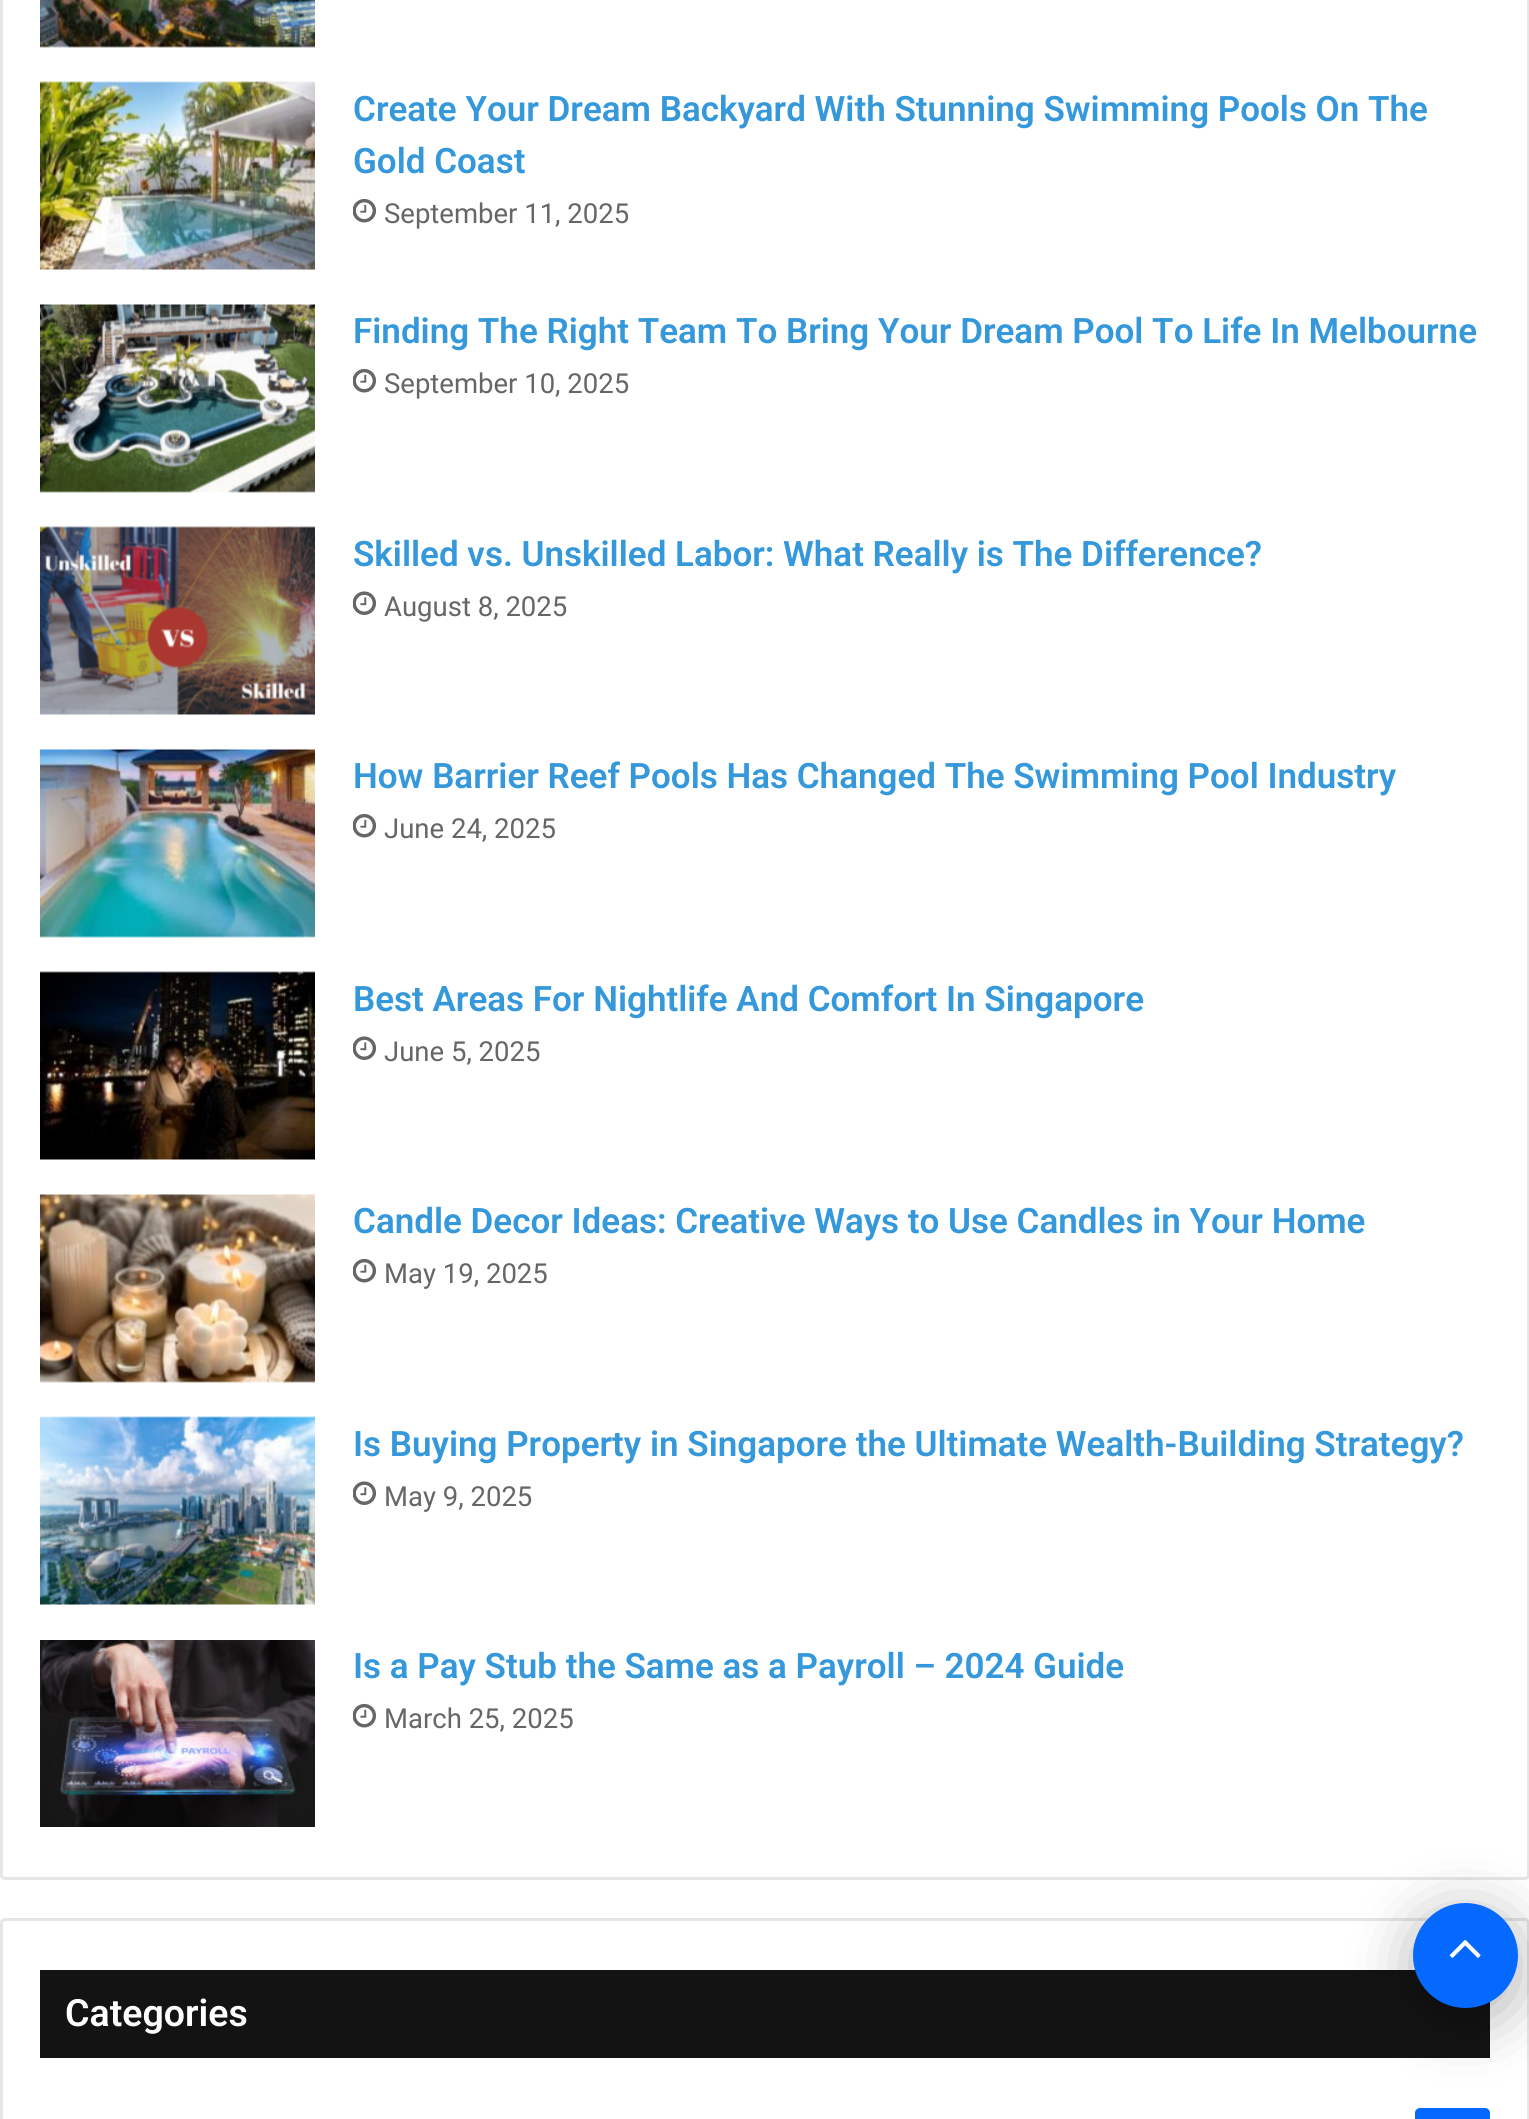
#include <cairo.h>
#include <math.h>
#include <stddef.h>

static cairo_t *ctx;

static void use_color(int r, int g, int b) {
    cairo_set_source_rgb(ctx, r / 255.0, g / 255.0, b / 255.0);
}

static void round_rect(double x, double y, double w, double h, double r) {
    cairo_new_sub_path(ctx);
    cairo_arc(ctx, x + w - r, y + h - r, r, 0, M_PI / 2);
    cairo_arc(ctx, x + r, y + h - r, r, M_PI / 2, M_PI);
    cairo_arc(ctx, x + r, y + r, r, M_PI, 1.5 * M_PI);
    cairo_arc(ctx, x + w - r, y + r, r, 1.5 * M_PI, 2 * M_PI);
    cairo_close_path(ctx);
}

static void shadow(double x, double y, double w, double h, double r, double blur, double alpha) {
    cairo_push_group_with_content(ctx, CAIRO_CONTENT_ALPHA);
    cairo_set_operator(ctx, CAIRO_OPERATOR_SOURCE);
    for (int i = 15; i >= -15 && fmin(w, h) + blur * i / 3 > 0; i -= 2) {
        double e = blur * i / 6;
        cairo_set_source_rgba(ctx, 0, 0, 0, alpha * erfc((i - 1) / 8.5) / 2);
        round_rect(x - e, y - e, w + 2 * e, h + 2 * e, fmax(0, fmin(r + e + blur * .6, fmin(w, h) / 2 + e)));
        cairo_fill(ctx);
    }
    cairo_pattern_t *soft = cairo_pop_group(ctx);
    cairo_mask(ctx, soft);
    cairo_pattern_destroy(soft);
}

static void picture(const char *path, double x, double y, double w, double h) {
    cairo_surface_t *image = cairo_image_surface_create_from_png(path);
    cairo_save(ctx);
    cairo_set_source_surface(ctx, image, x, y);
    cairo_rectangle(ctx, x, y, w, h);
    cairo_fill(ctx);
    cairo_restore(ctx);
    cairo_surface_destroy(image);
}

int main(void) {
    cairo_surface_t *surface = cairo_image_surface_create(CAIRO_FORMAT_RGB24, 1529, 2119);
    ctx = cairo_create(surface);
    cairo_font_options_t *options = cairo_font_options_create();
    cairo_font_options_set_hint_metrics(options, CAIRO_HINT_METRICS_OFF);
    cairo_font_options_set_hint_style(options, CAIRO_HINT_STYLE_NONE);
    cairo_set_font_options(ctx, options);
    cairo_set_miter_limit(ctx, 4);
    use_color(255, 255, 255);
    cairo_paint(ctx);
    round_rect(1.5, -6.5, 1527, 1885, 3.5);
    use_color(230, 230, 230);
    cairo_set_line_width(ctx, 3);
    cairo_stroke(ctx);
    picture("img1.png", 40, 0, 275, 48);
    picture("img2.png", 40, 81, 275, 189);
    cairo_select_font_face(ctx, "Roboto SemiBold", CAIRO_FONT_SLANT_NORMAL, CAIRO_FONT_WEIGHT_NORMAL);
    cairo_set_font_size(ctx, 35);
    use_color(52, 152, 219);
    cairo_move_to(ctx, 353, 121);
    cairo_show_text(ctx, "Create Your Dream Backyard With Stunning Swimming Pools On The");
    cairo_move_to(ctx, 353, 173);
    cairo_show_text(ctx, "Gold Coast");
    picture("img3.png", 353, 198, 24, 25);
    cairo_select_font_face(ctx, "Roboto", CAIRO_FONT_SLANT_NORMAL, CAIRO_FONT_WEIGHT_NORMAL);
    cairo_set_font_size(ctx, 27.5);
    use_color(102, 102, 102);
    cairo_move_to(ctx, 384, 223);
    cairo_show_text(ctx, "September 11, 2025");
    picture("img4.png", 40, 304, 275, 189);
    cairo_select_font_face(ctx, "Roboto SemiBold", CAIRO_FONT_SLANT_NORMAL, CAIRO_FONT_WEIGHT_NORMAL);
    cairo_set_font_size(ctx, 35);
    use_color(52, 152, 219);
    cairo_move_to(ctx, 353, 343);
    cairo_show_text(ctx, "Finding The Right Team To Bring Your Dream Pool To Life In Melbourne");
    picture("img3.png", 353, 368, 24, 25);
    cairo_select_font_face(ctx, "Roboto", CAIRO_FONT_SLANT_NORMAL, CAIRO_FONT_WEIGHT_NORMAL);
    cairo_set_font_size(ctx, 27.5);
    use_color(102, 102, 102);
    cairo_move_to(ctx, 384, 393);
    cairo_show_text(ctx, "September 10, 2025");
    picture("img5.png", 40, 526, 275, 189);
    cairo_select_font_face(ctx, "Roboto SemiBold", CAIRO_FONT_SLANT_NORMAL, CAIRO_FONT_WEIGHT_NORMAL);
    cairo_set_font_size(ctx, 35);
    use_color(52, 152, 219);
    cairo_move_to(ctx, 353, 566);
    cairo_show_text(ctx, "Skilled vs. Unskilled Labor: What Really is The Difference?");
    picture("img6.png", 353, 591, 24, 24);
    cairo_select_font_face(ctx, "Roboto", CAIRO_FONT_SLANT_NORMAL, CAIRO_FONT_WEIGHT_NORMAL);
    cairo_set_font_size(ctx, 27.5);
    use_color(102, 102, 102);
    cairo_move_to(ctx, 384, 616);
    cairo_show_text(ctx, "August 8, 2025");
    picture("img7.png", 40, 749, 275, 189);
    cairo_select_font_face(ctx, "Roboto SemiBold", CAIRO_FONT_SLANT_NORMAL, CAIRO_FONT_WEIGHT_NORMAL);
    cairo_set_font_size(ctx, 35);
    use_color(52, 152, 219);
    cairo_move_to(ctx, 353, 788);
    cairo_show_text(ctx, "How Barrier Reef Pools Has Changed The Swimming Pool Industry");
    picture("img3.png", 353, 813, 24, 25);
    cairo_select_font_face(ctx, "Roboto", CAIRO_FONT_SLANT_NORMAL, CAIRO_FONT_WEIGHT_NORMAL);
    cairo_set_font_size(ctx, 27.5);
    use_color(102, 102, 102);
    cairo_move_to(ctx, 384, 838);
    cairo_show_text(ctx, "June 24, 2025");
    picture("img8.png", 40, 971, 275, 189);
    cairo_select_font_face(ctx, "Roboto SemiBold", CAIRO_FONT_SLANT_NORMAL, CAIRO_FONT_WEIGHT_NORMAL);
    cairo_set_font_size(ctx, 35);
    use_color(52, 152, 219);
    cairo_move_to(ctx, 353, 1011);
    cairo_show_text(ctx, "Best Areas For Nightlife And Comfort In Singapore");
    picture("img6.png", 353, 1036, 24, 24);
    cairo_select_font_face(ctx, "Roboto", CAIRO_FONT_SLANT_NORMAL, CAIRO_FONT_WEIGHT_NORMAL);
    cairo_set_font_size(ctx, 27.5);
    use_color(102, 102, 102);
    cairo_move_to(ctx, 384, 1061);
    cairo_show_text(ctx, "June 5, 2025");
    picture("img9.png", 40, 1194, 275, 189);
    cairo_select_font_face(ctx, "Roboto SemiBold", CAIRO_FONT_SLANT_NORMAL, CAIRO_FONT_WEIGHT_NORMAL);
    cairo_set_font_size(ctx, 35);
    use_color(52, 152, 219);
    cairo_move_to(ctx, 353, 1233);
    cairo_show_text(ctx, "Candle Decor Ideas: Creative Ways to Use Candles in Your Home");
    picture("img3.png", 353, 1258, 24, 25);
    cairo_select_font_face(ctx, "Roboto", CAIRO_FONT_SLANT_NORMAL, CAIRO_FONT_WEIGHT_NORMAL);
    cairo_set_font_size(ctx, 27.5);
    use_color(102, 102, 102);
    cairo_move_to(ctx, 384, 1283);
    cairo_show_text(ctx, "May 19, 2025");
    picture("img10.png", 40, 1416, 275, 189);
    cairo_select_font_face(ctx, "Roboto SemiBold", CAIRO_FONT_SLANT_NORMAL, CAIRO_FONT_WEIGHT_NORMAL);
    cairo_set_font_size(ctx, 35);
    use_color(52, 152, 219);
    cairo_move_to(ctx, 353, 1456);
    cairo_show_text(ctx, "Is Buying Property in Singapore the Ultimate Wealth-Building Strategy?");
    picture("img6.png", 353, 1481, 24, 24);
    cairo_select_font_face(ctx, "Roboto", CAIRO_FONT_SLANT_NORMAL, CAIRO_FONT_WEIGHT_NORMAL);
    cairo_set_font_size(ctx, 27.5);
    use_color(102, 102, 102);
    cairo_move_to(ctx, 384, 1506);
    cairo_show_text(ctx, "May 9, 2025");
    picture("img11.png", 40, 1640, 275, 187);
    cairo_select_font_face(ctx, "Roboto SemiBold", CAIRO_FONT_SLANT_NORMAL, CAIRO_FONT_WEIGHT_NORMAL);
    cairo_set_font_size(ctx, 35);
    use_color(52, 152, 219);
    cairo_move_to(ctx, 353, 1678);
    cairo_show_text(ctx, "Is a Pay Stub the Same as a Payroll – 2024 Guide");
    picture("img3.png", 353, 1703, 24, 25);
    cairo_select_font_face(ctx, "Roboto", CAIRO_FONT_SLANT_NORMAL, CAIRO_FONT_WEIGHT_NORMAL);
    cairo_set_font_size(ctx, 27.5);
    use_color(102, 102, 102);
    cairo_move_to(ctx, 384, 1728);
    cairo_show_text(ctx, "March 25, 2025");
    round_rect(1.5, 1919.5, 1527, 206, 3.5);
    use_color(230, 230, 230);
    cairo_stroke(ctx);
    use_color(19, 19, 19);
    cairo_rectangle(ctx, 40, 1970, 1450, 88);
    cairo_fill(ctx);
    cairo_select_font_face(ctx, "Roboto SemiBold", CAIRO_FONT_SLANT_NORMAL, CAIRO_FONT_WEIGHT_NORMAL);
    cairo_set_font_size(ctx, 37.5);
    use_color(255, 255, 255);
    cairo_move_to(ctx, 65, 2026);
    cairo_show_text(ctx, "Categories");
    use_color(6, 105, 255);
    round_rect(1415, 2108, 75, 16, 5);
    cairo_fill(ctx);
    use_color(0, 0, 0);
    shadow(1413, 1915, 105, 105, 52.5, 31, 0.3);
    use_color(6, 105, 255);
    cairo_arc(ctx, 1465.5, 1955.5, 52.5, 0, 2 * M_PI);
    cairo_fill(ctx);
    picture("img12.png", 1449, 1940, 32, 18);
    cairo_surface_write_to_png(surface, "result.png");
    cairo_font_options_destroy(options);
    cairo_destroy(ctx);
    cairo_surface_destroy(surface);
    return 0;
}
